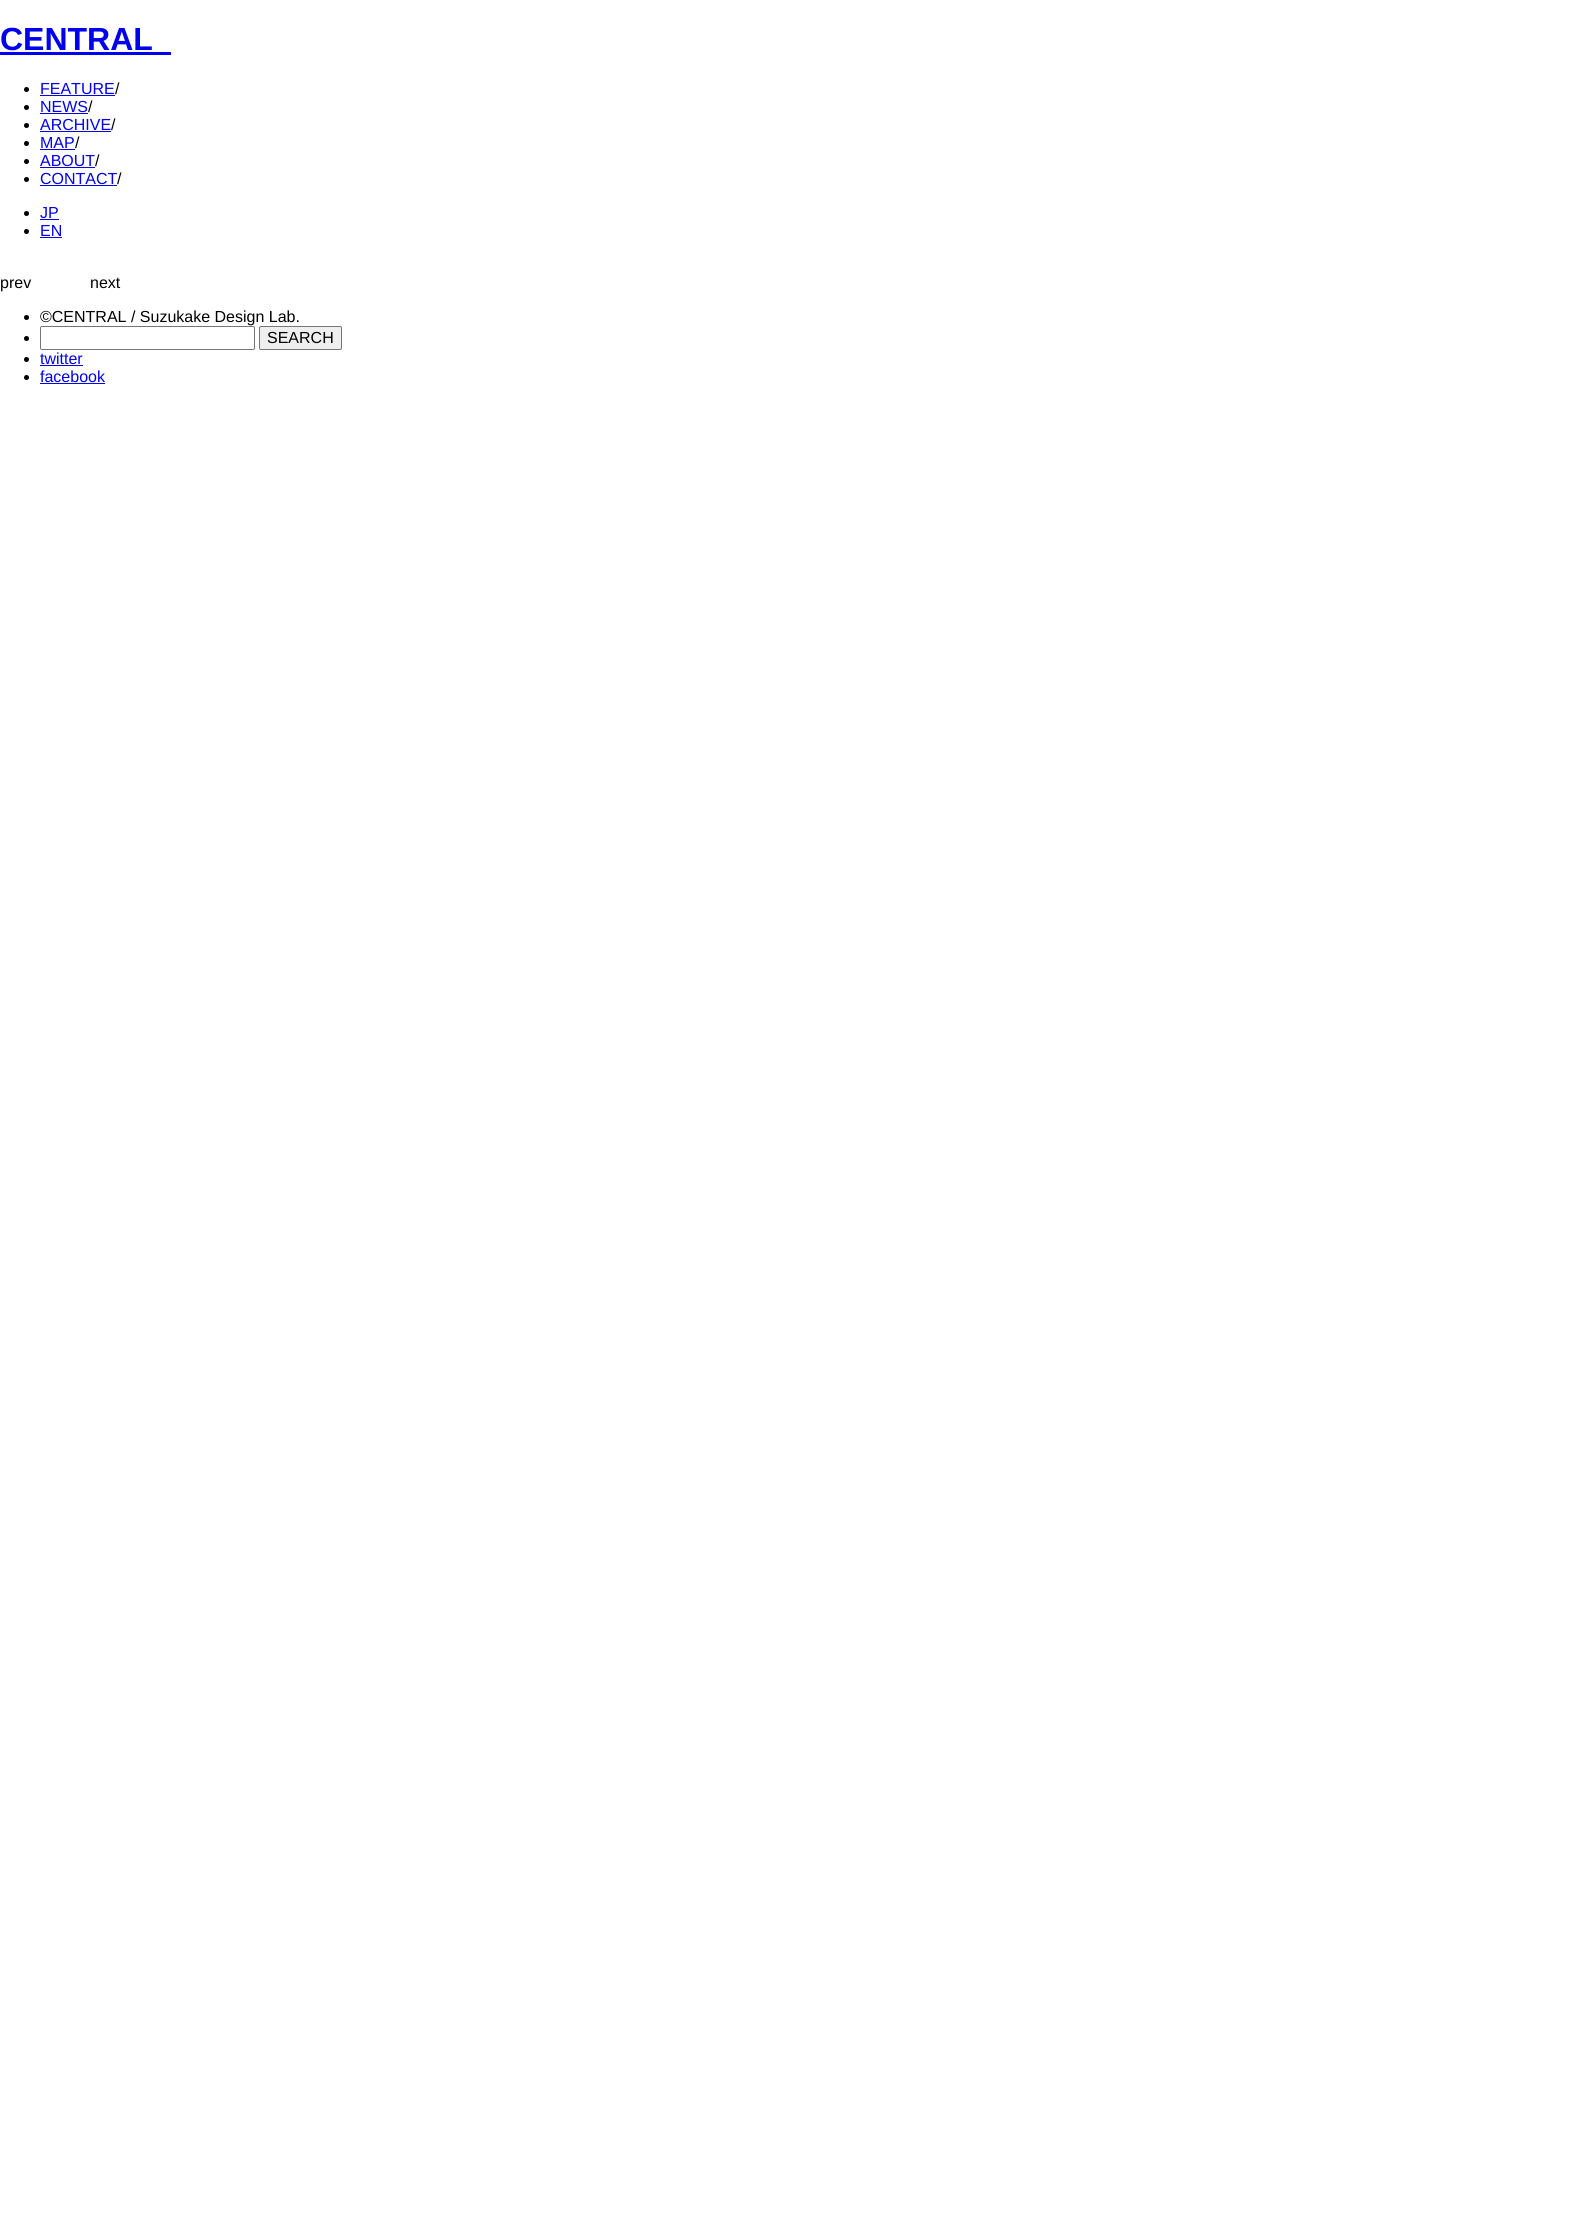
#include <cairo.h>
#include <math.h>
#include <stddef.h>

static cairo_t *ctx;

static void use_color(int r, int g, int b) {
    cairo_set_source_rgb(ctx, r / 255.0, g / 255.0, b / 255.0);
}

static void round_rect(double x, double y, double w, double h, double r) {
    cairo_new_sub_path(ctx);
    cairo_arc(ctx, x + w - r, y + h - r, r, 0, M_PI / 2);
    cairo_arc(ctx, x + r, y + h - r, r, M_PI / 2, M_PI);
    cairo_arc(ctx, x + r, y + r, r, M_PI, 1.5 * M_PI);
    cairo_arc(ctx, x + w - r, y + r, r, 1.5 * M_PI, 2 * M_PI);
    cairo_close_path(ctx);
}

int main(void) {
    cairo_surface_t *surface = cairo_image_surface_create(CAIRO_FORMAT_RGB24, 1581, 2221);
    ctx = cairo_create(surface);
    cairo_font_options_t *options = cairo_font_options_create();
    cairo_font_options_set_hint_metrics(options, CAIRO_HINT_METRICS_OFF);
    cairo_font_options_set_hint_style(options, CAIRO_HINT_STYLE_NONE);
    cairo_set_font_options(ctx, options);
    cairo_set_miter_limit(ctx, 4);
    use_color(255, 255, 255);
    cairo_paint(ctx);
    cairo_select_font_face(ctx, "Liberation Sans", CAIRO_FONT_SLANT_NORMAL, CAIRO_FONT_WEIGHT_BOLD);
    cairo_set_font_size(ctx, 32);
    use_color(0, 0, 238);
    cairo_move_to(ctx, 0, 50);
    cairo_show_text(ctx, "CENTRAL");
    cairo_rectangle(ctx, 0, 52, 171, 3);
    cairo_fill(ctx);
    use_color(0, 0, 0);
    cairo_arc(ctx, 26.5, 89.5, 2.5, 0, 2 * M_PI);
    cairo_fill(ctx);
    cairo_select_font_face(ctx, "Liberation Sans", CAIRO_FONT_SLANT_NORMAL, CAIRO_FONT_WEIGHT_NORMAL);
    cairo_set_font_size(ctx, 16);
    use_color(0, 0, 238);
    cairo_move_to(ctx, 40, 94);
    cairo_show_text(ctx, "FEATURE");
    cairo_rectangle(ctx, 40, 95, 75, 1);
    cairo_fill(ctx);
    use_color(0, 0, 0);
    cairo_move_to(ctx, 115, 94);
    cairo_show_text(ctx, "/");
    cairo_new_path(ctx);
    cairo_arc(ctx, 26.5, 107.5, 2.5, 0, 2 * M_PI);
    cairo_fill(ctx);
    use_color(0, 0, 238);
    cairo_move_to(ctx, 40, 112);
    cairo_show_text(ctx, "NEWS");
    cairo_rectangle(ctx, 40, 113, 48, 1);
    cairo_fill(ctx);
    use_color(0, 0, 0);
    cairo_move_to(ctx, 88, 112);
    cairo_show_text(ctx, "/");
    cairo_new_path(ctx);
    cairo_arc(ctx, 26.5, 125.5, 2.5, 0, 2 * M_PI);
    cairo_fill(ctx);
    use_color(0, 0, 238);
    cairo_move_to(ctx, 40, 130);
    cairo_show_text(ctx, "ARCHIVE");
    cairo_rectangle(ctx, 40, 131, 71, 1);
    cairo_fill(ctx);
    use_color(0, 0, 0);
    cairo_move_to(ctx, 111, 130);
    cairo_show_text(ctx, "/");
    cairo_new_path(ctx);
    cairo_arc(ctx, 26.5, 143.5, 2.5, 0, 2 * M_PI);
    cairo_fill(ctx);
    use_color(0, 0, 238);
    cairo_move_to(ctx, 40, 148);
    cairo_show_text(ctx, "MAP");
    cairo_rectangle(ctx, 40, 149, 35, 1);
    cairo_fill(ctx);
    use_color(0, 0, 0);
    cairo_move_to(ctx, 75, 148);
    cairo_show_text(ctx, "/");
    cairo_new_path(ctx);
    cairo_arc(ctx, 26.5, 161.5, 2.5, 0, 2 * M_PI);
    cairo_fill(ctx);
    use_color(0, 0, 238);
    cairo_move_to(ctx, 40, 166);
    cairo_show_text(ctx, "ABOUT");
    cairo_rectangle(ctx, 40, 167, 55, 1);
    cairo_fill(ctx);
    use_color(0, 0, 0);
    cairo_move_to(ctx, 95, 166);
    cairo_show_text(ctx, "/");
    cairo_new_path(ctx);
    cairo_arc(ctx, 26.5, 179.5, 2.5, 0, 2 * M_PI);
    cairo_fill(ctx);
    use_color(0, 0, 238);
    cairo_move_to(ctx, 40, 184);
    cairo_show_text(ctx, "CONTACT");
    cairo_rectangle(ctx, 40, 185, 77, 1);
    cairo_fill(ctx);
    use_color(0, 0, 0);
    cairo_move_to(ctx, 117, 184);
    cairo_show_text(ctx, "/");
    cairo_new_path(ctx);
    cairo_arc(ctx, 26.5, 213.5, 2.5, 0, 2 * M_PI);
    cairo_fill(ctx);
    use_color(0, 0, 238);
    cairo_move_to(ctx, 40, 218);
    cairo_show_text(ctx, "JP");
    cairo_rectangle(ctx, 40, 219, 19, 1);
    cairo_fill(ctx);
    use_color(0, 0, 0);
    cairo_arc(ctx, 26.5, 231.5, 2.5, 0, 2 * M_PI);
    cairo_fill(ctx);
    use_color(0, 0, 238);
    cairo_move_to(ctx, 40, 236);
    cairo_show_text(ctx, "EN");
    cairo_rectangle(ctx, 40, 237, 22, 1);
    cairo_fill(ctx);
    use_color(0, 0, 0);
    cairo_move_to(ctx, 0, 288);
    cairo_show_text(ctx, "prev");
    cairo_move_to(ctx, 90, 288);
    cairo_show_text(ctx, "next");
    cairo_new_path(ctx);
    cairo_arc(ctx, 26.5, 317.5, 2.5, 0, 2 * M_PI);
    cairo_fill(ctx);
    cairo_move_to(ctx, 40, 322);
    cairo_show_text(ctx, "©CENTRAL / Suzukake Design Lab.");
    cairo_new_path(ctx);
    cairo_arc(ctx, 26.5, 338.5, 2.5, 0, 2 * M_PI);
    cairo_fill(ctx);
    round_rect(40.5, 326.5, 214, 23, 1.5);
    use_color(118, 118, 118);
    cairo_set_line_width(ctx, 1);
    cairo_stroke(ctx);
    use_color(239, 239, 239);
    round_rect(259.5, 326.5, 82, 23, 1.5);
    cairo_fill_preserve(ctx);
    use_color(118, 118, 118);
    cairo_stroke(ctx);
    use_color(0, 0, 0);
    cairo_move_to(ctx, 267, 343);
    cairo_show_text(ctx, "SEARCH");
    cairo_new_path(ctx);
    cairo_arc(ctx, 26.5, 359.5, 2.5, 0, 2 * M_PI);
    cairo_fill(ctx);
    use_color(0, 0, 238);
    cairo_move_to(ctx, 40, 364);
    cairo_show_text(ctx, "twitter");
    cairo_rectangle(ctx, 40, 365, 43, 1);
    cairo_fill(ctx);
    use_color(0, 0, 0);
    cairo_arc(ctx, 26.5, 377.5, 2.5, 0, 2 * M_PI);
    cairo_fill(ctx);
    use_color(0, 0, 238);
    cairo_move_to(ctx, 40, 382);
    cairo_show_text(ctx, "facebook");
    cairo_rectangle(ctx, 40, 383, 65, 1);
    cairo_fill(ctx);
    cairo_surface_write_to_png(surface, "result.png");
    cairo_font_options_destroy(options);
    cairo_destroy(ctx);
    cairo_surface_destroy(surface);
    return 0;
}
